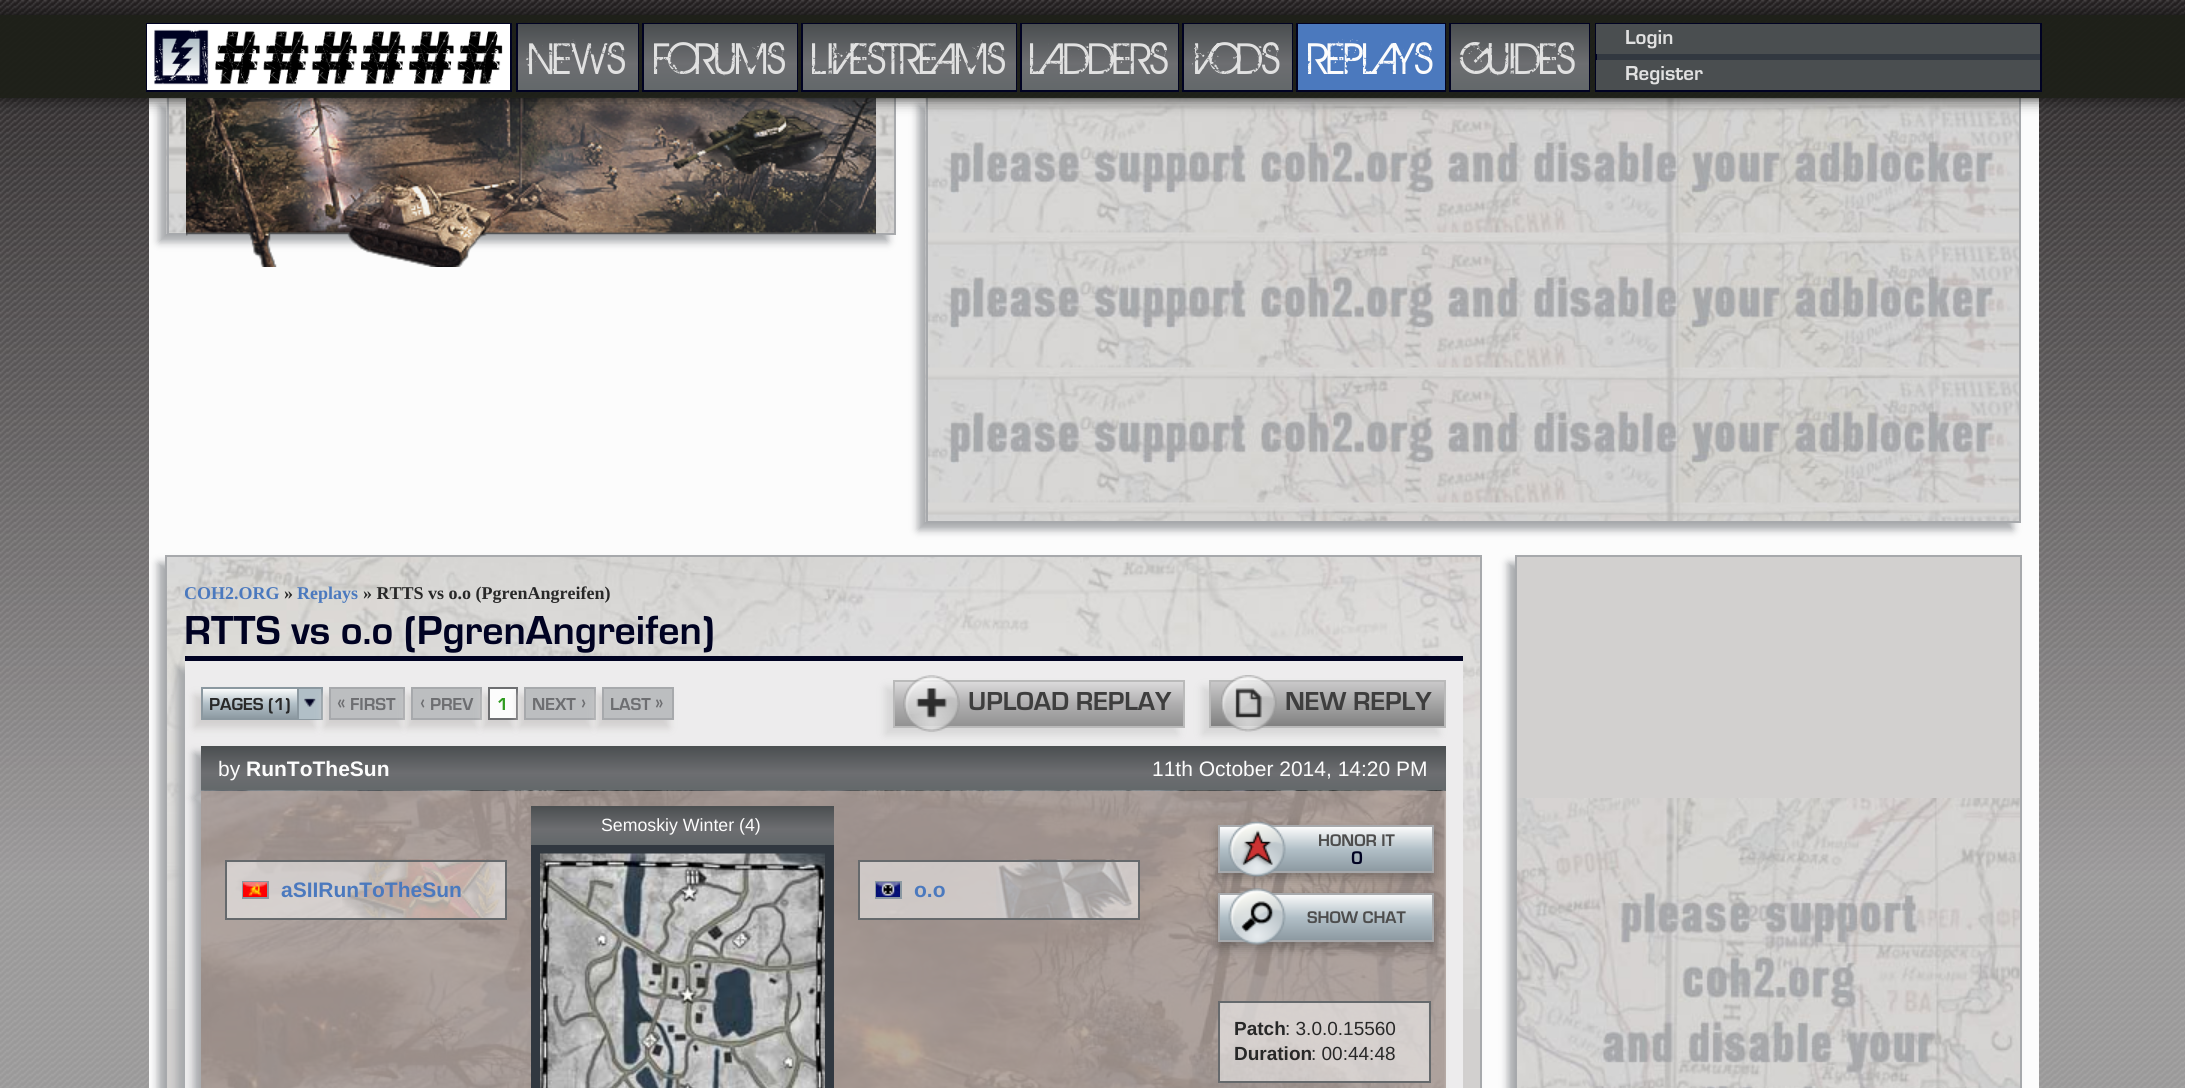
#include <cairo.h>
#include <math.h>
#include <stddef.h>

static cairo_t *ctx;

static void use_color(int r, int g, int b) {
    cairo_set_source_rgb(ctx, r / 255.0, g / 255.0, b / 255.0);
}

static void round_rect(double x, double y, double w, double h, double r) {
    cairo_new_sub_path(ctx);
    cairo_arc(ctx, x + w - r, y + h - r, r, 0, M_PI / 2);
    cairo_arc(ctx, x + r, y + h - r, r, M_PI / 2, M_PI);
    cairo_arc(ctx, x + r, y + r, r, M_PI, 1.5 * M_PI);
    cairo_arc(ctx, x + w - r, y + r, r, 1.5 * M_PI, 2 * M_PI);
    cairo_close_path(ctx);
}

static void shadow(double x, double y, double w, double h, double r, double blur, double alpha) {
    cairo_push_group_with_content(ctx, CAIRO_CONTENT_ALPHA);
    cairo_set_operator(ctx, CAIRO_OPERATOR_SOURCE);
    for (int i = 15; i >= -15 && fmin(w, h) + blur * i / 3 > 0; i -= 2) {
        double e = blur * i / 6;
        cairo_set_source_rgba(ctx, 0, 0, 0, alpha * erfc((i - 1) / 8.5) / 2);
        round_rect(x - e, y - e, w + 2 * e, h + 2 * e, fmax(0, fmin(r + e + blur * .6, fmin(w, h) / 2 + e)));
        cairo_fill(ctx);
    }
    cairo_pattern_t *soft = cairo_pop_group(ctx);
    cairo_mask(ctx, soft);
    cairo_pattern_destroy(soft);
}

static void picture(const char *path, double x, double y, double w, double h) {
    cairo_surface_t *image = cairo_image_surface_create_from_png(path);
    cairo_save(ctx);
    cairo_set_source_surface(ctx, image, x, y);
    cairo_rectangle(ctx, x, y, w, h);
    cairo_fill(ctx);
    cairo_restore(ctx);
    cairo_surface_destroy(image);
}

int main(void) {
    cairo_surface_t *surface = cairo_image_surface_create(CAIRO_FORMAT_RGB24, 2185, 1088);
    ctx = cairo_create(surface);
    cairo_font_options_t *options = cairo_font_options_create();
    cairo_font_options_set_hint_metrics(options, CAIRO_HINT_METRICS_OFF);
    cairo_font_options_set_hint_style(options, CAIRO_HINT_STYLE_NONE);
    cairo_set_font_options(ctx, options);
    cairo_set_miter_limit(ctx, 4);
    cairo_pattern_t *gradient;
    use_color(255, 255, 255);
    cairo_paint(ctx);
    picture("img1.png", 0, 0, 2185, 1088);
    use_color(252, 252, 252);
    cairo_rectangle(ctx, 149, 98, 1890, 990);
    cairo_fill(ctx);
    use_color(167, 169, 172);
    shadow(159, 105, 729, 137, 0, 4, 1);
    picture("img3.png", 166, 97, 730, 137);
    use_color(167, 169, 172);
    cairo_rectangle(ctx, 894, 98, 2, 136);
    cairo_fill(ctx);
    cairo_rectangle(ctx, 167, 233, 729, 2);
    cairo_fill(ctx);
    cairo_rectangle(ctx, 167, 98, 2, 136);
    cairo_fill(ctx);
    picture("img4.png", 186, 97, 690, 170);
    use_color(167, 169, 172);
    shadow(918, 105, 1095, 425, 0, 4, 1);
    picture("img5.png", 925, 97, 1096, 425);
    use_color(167, 169, 172);
    cairo_rectangle(ctx, 2019, 98, 2, 424);
    cairo_fill(ctx);
    cairo_rectangle(ctx, 926, 521, 1095, 2);
    cairo_fill(ctx);
    cairo_rectangle(ctx, 926, 98, 2, 424);
    cairo_fill(ctx);
    cairo_save(ctx);
    cairo_set_fill_rule(ctx, CAIRO_FILL_RULE_EVEN_ODD);
    cairo_new_path(ctx);
    cairo_move_to(ctx, 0, 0);
    cairo_line_to(ctx, 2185, 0);
    cairo_line_to(ctx, 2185, 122);
    cairo_line_to(ctx, 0, 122);
    cairo_close_path(ctx);
    cairo_move_to(ctx, 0, 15);
    cairo_line_to(ctx, 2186, 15);
    cairo_line_to(ctx, 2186, 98);
    cairo_line_to(ctx, 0, 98);
    cairo_close_path(ctx);
    cairo_clip(ctx);
    use_color(19, 19, 19);
    shadow(0, 15, 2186, 83, 0, 7.5, 1);
    cairo_restore(ctx);
    cairo_set_source_rgba(ctx, 0.118, 0.125, 0.098, 0.95);
    cairo_rectangle(ctx, 0, 15, 2185, 83);
    cairo_fill(ctx);
    cairo_rectangle(ctx, 147, 24, 364, 67);
    use_color(0, 2, 34);
    cairo_stroke(ctx);
    picture("img2.png", 147, 24, 363, 66);
    cairo_rectangle(ctx, 517, 24, 121, 67);
    cairo_stroke(ctx);
    gradient = cairo_pattern_create_linear(518, 24, 518, 90);
    cairo_pattern_add_color_stop_rgba(gradient, 0, 0.29, 0.306, 0.314, 1);
    cairo_pattern_add_color_stop_rgba(gradient, 0.6, 0.427, 0.431, 0.443, 1);
    cairo_pattern_add_color_stop_rgba(gradient, 1, 0.388, 0.408, 0.416, 1);
    cairo_set_source(ctx, gradient);
    cairo_pattern_destroy(gradient);
    cairo_rectangle(ctx, 518, 24, 120, 66);
    cairo_fill(ctx);
    cairo_select_font_face(ctx, "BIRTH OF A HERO", CAIRO_FONT_SLANT_NORMAL, CAIRO_FONT_WEIGHT_NORMAL);
    cairo_set_font_size(ctx, 48);
    use_color(225, 225, 225);
    cairo_move_to(ctx, 529, 74);
    cairo_show_text(ctx, "NEWS");
    cairo_rectangle(ctx, 643, 24, 154, 67);
    use_color(0, 2, 34);
    cairo_stroke(ctx);
    gradient = cairo_pattern_create_linear(644, 24, 644, 90);
    cairo_pattern_add_color_stop_rgba(gradient, 0, 0.29, 0.306, 0.314, 1);
    cairo_pattern_add_color_stop_rgba(gradient, 0.6, 0.427, 0.431, 0.443, 1);
    cairo_pattern_add_color_stop_rgba(gradient, 1, 0.388, 0.408, 0.416, 1);
    cairo_set_source(ctx, gradient);
    cairo_pattern_destroy(gradient);
    cairo_rectangle(ctx, 644, 24, 153, 66);
    cairo_fill(ctx);
    use_color(225, 225, 225);
    cairo_move_to(ctx, 654, 74);
    cairo_show_text(ctx, "FORUMS");
    cairo_rectangle(ctx, 802, 24, 214, 67);
    use_color(0, 2, 34);
    cairo_stroke(ctx);
    gradient = cairo_pattern_create_linear(803, 24, 803, 90);
    cairo_pattern_add_color_stop_rgba(gradient, 0, 0.29, 0.306, 0.314, 1);
    cairo_pattern_add_color_stop_rgba(gradient, 0.6, 0.427, 0.431, 0.443, 1);
    cairo_pattern_add_color_stop_rgba(gradient, 1, 0.388, 0.408, 0.416, 1);
    cairo_set_source(ctx, gradient);
    cairo_pattern_destroy(gradient);
    cairo_rectangle(ctx, 803, 24, 213, 66);
    cairo_fill(ctx);
    use_color(225, 225, 225);
    cairo_move_to(ctx, 812, 74);
    cairo_show_text(ctx, "LIVESTREAMS");
    cairo_rectangle(ctx, 1021, 24, 157, 67);
    use_color(0, 2, 34);
    cairo_stroke(ctx);
    gradient = cairo_pattern_create_linear(1022, 24, 1022, 90);
    cairo_pattern_add_color_stop_rgba(gradient, 0, 0.29, 0.306, 0.314, 1);
    cairo_pattern_add_color_stop_rgba(gradient, 0.6, 0.427, 0.431, 0.443, 1);
    cairo_pattern_add_color_stop_rgba(gradient, 1, 0.388, 0.408, 0.416, 1);
    cairo_set_source(ctx, gradient);
    cairo_pattern_destroy(gradient);
    cairo_rectangle(ctx, 1022, 24, 156, 66);
    cairo_fill(ctx);
    use_color(225, 225, 225);
    cairo_move_to(ctx, 1030, 74);
    cairo_show_text(ctx, "LADDERS");
    cairo_rectangle(ctx, 1183, 24, 109, 67);
    use_color(0, 2, 34);
    cairo_stroke(ctx);
    gradient = cairo_pattern_create_linear(1184, 24, 1184, 90);
    cairo_pattern_add_color_stop_rgba(gradient, 0, 0.29, 0.306, 0.314, 1);
    cairo_pattern_add_color_stop_rgba(gradient, 0.6, 0.427, 0.431, 0.443, 1);
    cairo_pattern_add_color_stop_rgba(gradient, 1, 0.388, 0.408, 0.416, 1);
    cairo_set_source(ctx, gradient);
    cairo_pattern_destroy(gradient);
    cairo_rectangle(ctx, 1184, 24, 108, 66);
    cairo_fill(ctx);
    use_color(225, 225, 225);
    cairo_move_to(ctx, 1195, 74);
    cairo_show_text(ctx, "VODS");
    cairo_rectangle(ctx, 1297, 24, 148, 67);
    use_color(0, 2, 34);
    cairo_stroke(ctx);
    use_color(75, 121, 190);
    cairo_rectangle(ctx, 1298, 24, 147, 66);
    cairo_fill(ctx);
    use_color(252, 252, 252);
    cairo_move_to(ctx, 1308, 74);
    cairo_show_text(ctx, "REPLAYS");
    cairo_rectangle(ctx, 1450, 24, 139, 67);
    use_color(0, 2, 34);
    cairo_stroke(ctx);
    gradient = cairo_pattern_create_linear(1451, 24, 1451, 90);
    cairo_pattern_add_color_stop_rgba(gradient, 0, 0.29, 0.306, 0.314, 1);
    cairo_pattern_add_color_stop_rgba(gradient, 0.6, 0.427, 0.431, 0.443, 1);
    cairo_pattern_add_color_stop_rgba(gradient, 1, 0.388, 0.408, 0.416, 1);
    cairo_set_source(ctx, gradient);
    cairo_pattern_destroy(gradient);
    cairo_rectangle(ctx, 1451, 24, 138, 66);
    cairo_fill(ctx);
    use_color(225, 225, 225);
    cairo_move_to(ctx, 1463, 74);
    cairo_show_text(ctx, "GUIDES");
    use_color(50, 56, 64);
    cairo_rectangle(ctx, 1597, 54, 443, 6);
    cairo_fill(ctx);
    cairo_rectangle(ctx, 1596, 24, 445, 67);
    use_color(0, 2, 34);
    cairo_stroke(ctx);
    use_color(74, 78, 80);
    cairo_rectangle(ctx, 1596, 24, 444, 30);
    cairo_fill(ctx);
    cairo_select_font_face(ctx, "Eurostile", CAIRO_FONT_SLANT_NORMAL, CAIRO_FONT_WEIGHT_BOLD);
    cairo_set_font_size(ctx, 21);
    use_color(225, 225, 225);
    cairo_move_to(ctx, 1625, 44);
    cairo_show_text(ctx, "Login");
    use_color(74, 78, 80);
    cairo_rectangle(ctx, 1596, 60, 444, 30);
    cairo_fill(ctx);
    use_color(225, 225, 225);
    cairo_move_to(ctx, 1625, 80);
    cairo_show_text(ctx, "Register");
    use_color(167, 169, 172);
    shadow(158, 563, 1317, 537, 0, 4, 1);
    use_color(210, 208, 207);
    cairo_rectangle(ctx, 167, 1009, 1313, 79);
    cairo_fill(ctx);
    picture("img6.png", 167, 557, 1313, 452);
    cairo_rectangle(ctx, 166, 556, 1315, 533);
    use_color(167, 169, 172);
    cairo_stroke(ctx);
    cairo_save(ctx);
    cairo_rectangle(ctx, 185, 575, 1275, 28);
    cairo_clip(ctx);
    cairo_select_font_face(ctx, "Liberation Serif", CAIRO_FONT_SLANT_NORMAL, CAIRO_FONT_WEIGHT_BOLD);
    cairo_set_font_size(ctx, 18);
    use_color(75, 121, 190);
    cairo_move_to(ctx, 184, 599);
    cairo_show_text(ctx, "COH2.ORG");
    cairo_restore(ctx);
    cairo_select_font_face(ctx, "Liberation Serif", CAIRO_FONT_SLANT_NORMAL, CAIRO_FONT_WEIGHT_BOLD);
    cairo_set_font_size(ctx, 18);
    use_color(40, 40, 40);
    cairo_move_to(ctx, 284, 599);
    cairo_show_text(ctx, "»");
    use_color(75, 121, 190);
    cairo_move_to(ctx, 297, 599);
    cairo_show_text(ctx, "Replays");
    use_color(40, 40, 40);
    cairo_move_to(ctx, 363, 599);
    cairo_show_text(ctx, "» RTTS vs o.o (PgrenAngreifen)");
    use_color(167, 169, 172);
    shadow(177, 668, 1278, 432, 0, 4, 1);
    use_color(0, 2, 34);
    cairo_rectangle(ctx, 185, 656, 1278, 5);
    cairo_fill(ctx);
    cairo_select_font_face(ctx, "Eurostile", CAIRO_FONT_SLANT_NORMAL, CAIRO_FONT_WEIGHT_BOLD);
    cairo_set_font_size(ctx, 42);
    cairo_move_to(ctx, 184, 644);
    cairo_show_text(ctx, "RTTS vs o.o (PgrenAngreifen)");
    use_color(237, 236, 237);
    cairo_rectangle(ctx, 185, 661, 1278, 427);
    cairo_fill(ctx);
    use_color(210, 208, 207);
    shadow(194, 695, 121, 33, 0, 4, 1);
    gradient = cairo_pattern_create_linear(203, 689, 203, 719);
    cairo_pattern_add_color_stop_rgba(gradient, 0, 0.988, 0.988, 0.988, 1);
    cairo_pattern_add_color_stop_rgba(gradient, 0.5, 0.694, 0.749, 0.78, 1);
    cairo_pattern_add_color_stop_rgba(gradient, 1, 0.545, 0.596, 0.627, 1);
    cairo_set_source(ctx, gradient);
    cairo_pattern_destroy(gradient);
    cairo_rectangle(ctx, 203, 689, 94, 29);
    cairo_fill(ctx);
    cairo_rectangle(ctx, 202, 688, 120, 31);
    use_color(139, 152, 160);
    cairo_stroke(ctx);
    cairo_set_font_size(ctx, 18);
    use_color(40, 40, 40);
    cairo_move_to(ctx, 209, 710);
    cairo_show_text(ctx, "PAGES (1)");
    use_color(177, 191, 199);
    cairo_rectangle(ctx, 299, 689, 22, 30);
    cairo_fill(ctx);
    use_color(139, 152, 160);
    cairo_rectangle(ctx, 297, 689, 2, 30);
    cairo_fill(ctx);
    picture("img7.png", 304, 698, 12, 9);
    use_color(210, 208, 207);
    shadow(324, 695, 77, 33, 0, 4, 1);
    use_color(188, 190, 192);
    cairo_rectangle(ctx, 330, 688, 74, 31);
    cairo_fill_preserve(ctx);
    use_color(167, 169, 172);
    cairo_stroke(ctx);
    use_color(109, 110, 113);
    cairo_move_to(ctx, 337, 708);
    cairo_show_text(ctx, "«");
    use_color(210, 208, 207);
    shadow(407, 695, 70, 33, 0, 4, 1);
    use_color(109, 110, 113);
    cairo_move_to(ctx, 350, 710);
    cairo_show_text(ctx, "FIRST");
    use_color(188, 190, 192);
    cairo_rectangle(ctx, 412, 688, 69, 31);
    cairo_fill_preserve(ctx);
    use_color(167, 169, 172);
    cairo_stroke(ctx);
    use_color(109, 110, 113);
    cairo_move_to(ctx, 420, 708);
    cairo_show_text(ctx, "‹");
    use_color(210, 208, 207);
    shadow(483, 695, 30, 33, 0, 4, 1);
    use_color(109, 110, 113);
    cairo_move_to(ctx, 430, 710);
    cairo_show_text(ctx, "PREV");
    use_color(252, 252, 252);
    cairo_rectangle(ctx, 489, 688, 28, 31);
    cairo_fill_preserve(ctx);
    use_color(109, 110, 113);
    cairo_stroke(ctx);
    use_color(46, 155, 30);
    cairo_move_to(ctx, 497, 710);
    cairo_show_text(ctx, "1");
    use_color(210, 208, 207);
    shadow(519, 695, 72, 33, 0, 4, 1);
    use_color(188, 190, 192);
    cairo_rectangle(ctx, 525, 688, 70, 31);
    cairo_fill_preserve(ctx);
    use_color(167, 169, 172);
    cairo_stroke(ctx);
    use_color(109, 110, 113);
    cairo_move_to(ctx, 532, 710);
    cairo_show_text(ctx, "NEXT");
    use_color(210, 208, 207);
    shadow(597, 695, 72, 33, 0, 4, 1);
    use_color(109, 110, 113);
    cairo_move_to(ctx, 581, 708);
    cairo_show_text(ctx, "›");
    use_color(188, 190, 192);
    cairo_rectangle(ctx, 603, 688, 70, 31);
    cairo_fill_preserve(ctx);
    use_color(167, 169, 172);
    cairo_stroke(ctx);
    use_color(109, 110, 113);
    cairo_move_to(ctx, 610, 710);
    cairo_show_text(ctx, "LAST");
    cairo_move_to(ctx, 655, 708);
    cairo_show_text(ctx, "»");
    use_color(215, 215, 215);
    shadow(885, 687, 293, 48, 0, 4, 1);
    gradient = cairo_pattern_create_linear(894, 681, 894, 726);
    cairo_pattern_add_color_stop_rgba(gradient, 0, 0.867, 0.863, 0.867, 1);
    cairo_pattern_add_color_stop_rgba(gradient, 0.5, 0.69, 0.686, 0.69, 1);
    cairo_pattern_add_color_stop_rgba(gradient, 1, 0.573, 0.573, 0.573, 1);
    cairo_set_source(ctx, gradient);
    cairo_pattern_destroy(gradient);
    cairo_rectangle(ctx, 895, 682, 288, 44);
    cairo_fill(ctx);
    cairo_rectangle(ctx, 894, 681, 290, 46);
    use_color(186, 186, 186);
    cairo_stroke(ctx);
    picture("img8.png", 903, 675, 57, 57);
    cairo_set_font_size(ctx, 27);
    use_color(62, 62, 62);
    cairo_move_to(ctx, 968, 710);
    cairo_show_text(ctx, "UPLOAD REPLAY");
    use_color(215, 215, 215);
    shadow(1202, 687, 237, 48, 0, 4, 1);
    gradient = cairo_pattern_create_linear(1211, 681, 1211, 726);
    cairo_pattern_add_color_stop_rgba(gradient, 0, 0.796, 0.792, 0.796, 1);
    cairo_pattern_add_color_stop_rgba(gradient, 0.5, 0.647, 0.647, 0.647, 1);
    cairo_pattern_add_color_stop_rgba(gradient, 1, 0.506, 0.506, 0.506, 1);
    cairo_set_source(ctx, gradient);
    cairo_pattern_destroy(gradient);
    cairo_rectangle(ctx, 1211, 682, 233, 44);
    cairo_fill(ctx);
    cairo_rectangle(ctx, 1210, 681, 235, 46);
    use_color(186, 186, 186);
    cairo_stroke(ctx);
    picture("img9.png", 1221, 675, 56, 57);
    use_color(62, 62, 62);
    cairo_move_to(ctx, 1285, 710);
    cairo_show_text(ctx, "NEW REPLY");
    use_color(167, 169, 172);
    shadow(194, 753, 1245, 45, 0, 4, 1);
    gradient = cairo_pattern_create_linear(201, 746, 201, 791);
    cairo_pattern_add_color_stop_rgba(gradient, 0, 0.29, 0.306, 0.314, 1);
    cairo_pattern_add_color_stop_rgba(gradient, 0.6, 0.427, 0.431, 0.443, 1);
    cairo_pattern_add_color_stop_rgba(gradient, 1, 0.388, 0.408, 0.416, 1);
    cairo_set_source(ctx, gradient);
    cairo_pattern_destroy(gradient);
    cairo_rectangle(ctx, 201, 746, 1245, 45);
    cairo_fill(ctx);
    cairo_select_font_face(ctx, "Liberation Sans", CAIRO_FONT_SLANT_NORMAL, CAIRO_FONT_WEIGHT_NORMAL);
    cairo_set_font_size(ctx, 21);
    use_color(252, 252, 252);
    cairo_move_to(ctx, 218, 776);
    cairo_show_text(ctx, "by");
    cairo_select_font_face(ctx, "Liberation Sans", CAIRO_FONT_SLANT_NORMAL, CAIRO_FONT_WEIGHT_BOLD);
    cairo_move_to(ctx, 246, 776);
    cairo_show_text(ctx, "RunToTheSun");
    cairo_select_font_face(ctx, "Liberation Sans", CAIRO_FONT_SLANT_NORMAL, CAIRO_FONT_WEIGHT_NORMAL);
    cairo_move_to(ctx, 1152, 776);
    cairo_show_text(ctx, "11th October 2014, 14:20 PM");
    use_color(167, 169, 172);
    shadow(194, 798, 1245, 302, 0, 4, 1);
    picture("img10.png", 201, 790, 1244, 298);
    cairo_set_source_rgba(ctx, 0.675, 0.62, 0.596, 0.85);
    cairo_rectangle(ctx, 201, 791, 1245, 297);
    cairo_fill(ctx);
    gradient = cairo_pattern_create_linear(531, 806, 531, 845);
    cairo_pattern_add_color_stop_rgba(gradient, 0, 0.29, 0.306, 0.314, 1);
    cairo_pattern_add_color_stop_rgba(gradient, 0.6, 0.427, 0.431, 0.443, 1);
    cairo_pattern_add_color_stop_rgba(gradient, 1, 0.388, 0.408, 0.416, 1);
    cairo_set_source(ctx, gradient);
    cairo_pattern_destroy(gradient);
    cairo_rectangle(ctx, 531, 806, 303, 39);
    cairo_fill(ctx);
    cairo_set_font_size(ctx, 17.75);
    use_color(252, 252, 252);
    cairo_move_to(ctx, 601, 831);
    cairo_show_text(ctx, "Semoskiy Winter (4)");
    use_color(49, 56, 64);
    cairo_rectangle(ctx, 531, 845, 303, 243);
    cairo_fill(ctx);
    picture("img11.png", 540, 853, 285, 235);
    cairo_set_source_rgba(ctx, 1, 1, 1, 0.5);
    cairo_rectangle(ctx, 227, 862, 278, 56);
    cairo_fill(ctx);
    picture("img12.png", 342, 859, 158, 59);
    cairo_rectangle(ctx, 226, 861, 280, 58);
    use_color(101, 105, 108);
    cairo_stroke(ctx);
    cairo_rectangle(ctx, 243, 882, 25, 16);
    use_color(139, 152, 161);
    cairo_stroke(ctx);
    cairo_select_font_face(ctx, "Liberation Sans", CAIRO_FONT_SLANT_NORMAL, CAIRO_FONT_WEIGHT_BOLD);
    cairo_set_font_size(ctx, 21);
    use_color(75, 121, 190);
    cairo_move_to(ctx, 281, 897);
    cairo_show_text(ctx, "aSIIRunToTheSun");
    picture("img13.png", 243, 882, 24, 15);
    cairo_set_source_rgba(ctx, 1, 1, 1, 0.5);
    cairo_rectangle(ctx, 860, 862, 278, 56);
    cairo_fill(ctx);
    picture("img14.png", 996, 859, 137, 59);
    cairo_rectangle(ctx, 859, 861, 280, 58);
    use_color(101, 105, 108);
    cairo_stroke(ctx);
    cairo_rectangle(ctx, 876, 882, 25, 16);
    use_color(139, 152, 161);
    cairo_stroke(ctx);
    picture("img15.png", 876, 882, 24, 15);
    use_color(75, 121, 190);
    cairo_move_to(ctx, 914, 897);
    cairo_show_text(ctx, "o.o");
    use_color(0, 0, 0);
    shadow(1218, 830, 216, 48, 0, 6, 0.3);
    gradient = cairo_pattern_create_linear(1220, 827, 1220, 872);
    cairo_pattern_add_color_stop_rgba(gradient, 0, 0.988, 0.988, 0.988, 1);
    cairo_pattern_add_color_stop_rgba(gradient, 0.5, 0.694, 0.749, 0.78, 1);
    cairo_pattern_add_color_stop_rgba(gradient, 1, 0.545, 0.596, 0.627, 1);
    cairo_set_source(ctx, gradient);
    cairo_pattern_destroy(gradient);
    cairo_rectangle(ctx, 1220, 827, 212, 44);
    cairo_fill(ctx);
    cairo_rectangle(ctx, 1219, 826, 214, 46);
    use_color(167, 169, 172);
    cairo_stroke(ctx);
    picture("img16.png", 1228, 821, 58, 56);
    cairo_select_font_face(ctx, "Eurostile", CAIRO_FONT_SLANT_NORMAL, CAIRO_FONT_WEIGHT_BOLD);
    cairo_set_font_size(ctx, 17.5);
    use_color(77, 77, 77);
    cairo_move_to(ctx, 1318, 846);
    cairo_show_text(ctx, "HONOR IT");
    cairo_set_font_size(ctx, 19);
    use_color(0, 2, 34);
    cairo_move_to(ctx, 1351, 864);
    cairo_show_text(ctx, "0");
    use_color(0, 0, 0);
    shadow(1218, 897, 216, 50, 0, 6, 0.3);
    gradient = cairo_pattern_create_linear(1220, 894, 1220, 941);
    cairo_pattern_add_color_stop_rgba(gradient, 0, 0.988, 0.988, 0.988, 1);
    cairo_pattern_add_color_stop_rgba(gradient, 0.5, 0.694, 0.749, 0.78, 1);
    cairo_pattern_add_color_stop_rgba(gradient, 1, 0.545, 0.596, 0.627, 1);
    cairo_set_source(ctx, gradient);
    cairo_pattern_destroy(gradient);
    cairo_rectangle(ctx, 1220, 895, 212, 45);
    cairo_fill(ctx);
    cairo_rectangle(ctx, 1219, 894, 214, 47);
    use_color(167, 169, 172);
    cairo_stroke(ctx);
    picture("img17.png", 1228, 888, 58, 57);
    cairo_set_font_size(ctx, 17.5);
    use_color(77, 77, 77);
    cairo_move_to(ctx, 1307, 923);
    cairo_show_text(ctx, "SHOW CHAT");
    cairo_set_source_rgba(ctx, 1, 1, 1, 0.5);
    cairo_rectangle(ctx, 1219, 1002, 211, 80);
    cairo_fill_preserve(ctx);
    use_color(101, 105, 108);
    cairo_stroke(ctx);
    cairo_select_font_face(ctx, "Liberation Sans", CAIRO_FONT_SLANT_NORMAL, CAIRO_FONT_WEIGHT_BOLD);
    cairo_set_font_size(ctx, 19);
    use_color(40, 40, 40);
    cairo_move_to(ctx, 1234, 1035);
    cairo_show_text(ctx, "Patch");
    cairo_select_font_face(ctx, "Liberation Sans", CAIRO_FONT_SLANT_NORMAL, CAIRO_FONT_WEIGHT_NORMAL);
    cairo_move_to(ctx, 1285, 1035);
    cairo_show_text(ctx, ": 3.0.0.15560");
    cairo_select_font_face(ctx, "Liberation Sans", CAIRO_FONT_SLANT_NORMAL, CAIRO_FONT_WEIGHT_BOLD);
    cairo_move_to(ctx, 1234, 1060);
    cairo_show_text(ctx, "Duration");
    cairo_select_font_face(ctx, "Liberation Sans", CAIRO_FONT_SLANT_NORMAL, CAIRO_FONT_WEIGHT_NORMAL);
    cairo_move_to(ctx, 1311, 1060);
    cairo_show_text(ctx, ": 00:44:48");
    use_color(167, 169, 172);
    shadow(1508, 563, 507, 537, 0, 4, 1);
    use_color(210, 208, 207);
    cairo_rectangle(ctx, 1517, 557, 503, 241);
    cairo_fill(ctx);
    picture("img18.png", 1517, 798, 503, 290);
    cairo_rectangle(ctx, 1516, 556, 505, 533);
    use_color(167, 169, 172);
    cairo_stroke(ctx);
    cairo_surface_write_to_png(surface, "result.png");
    cairo_font_options_destroy(options);
    cairo_destroy(ctx);
    cairo_surface_destroy(surface);
    return 0;
}
